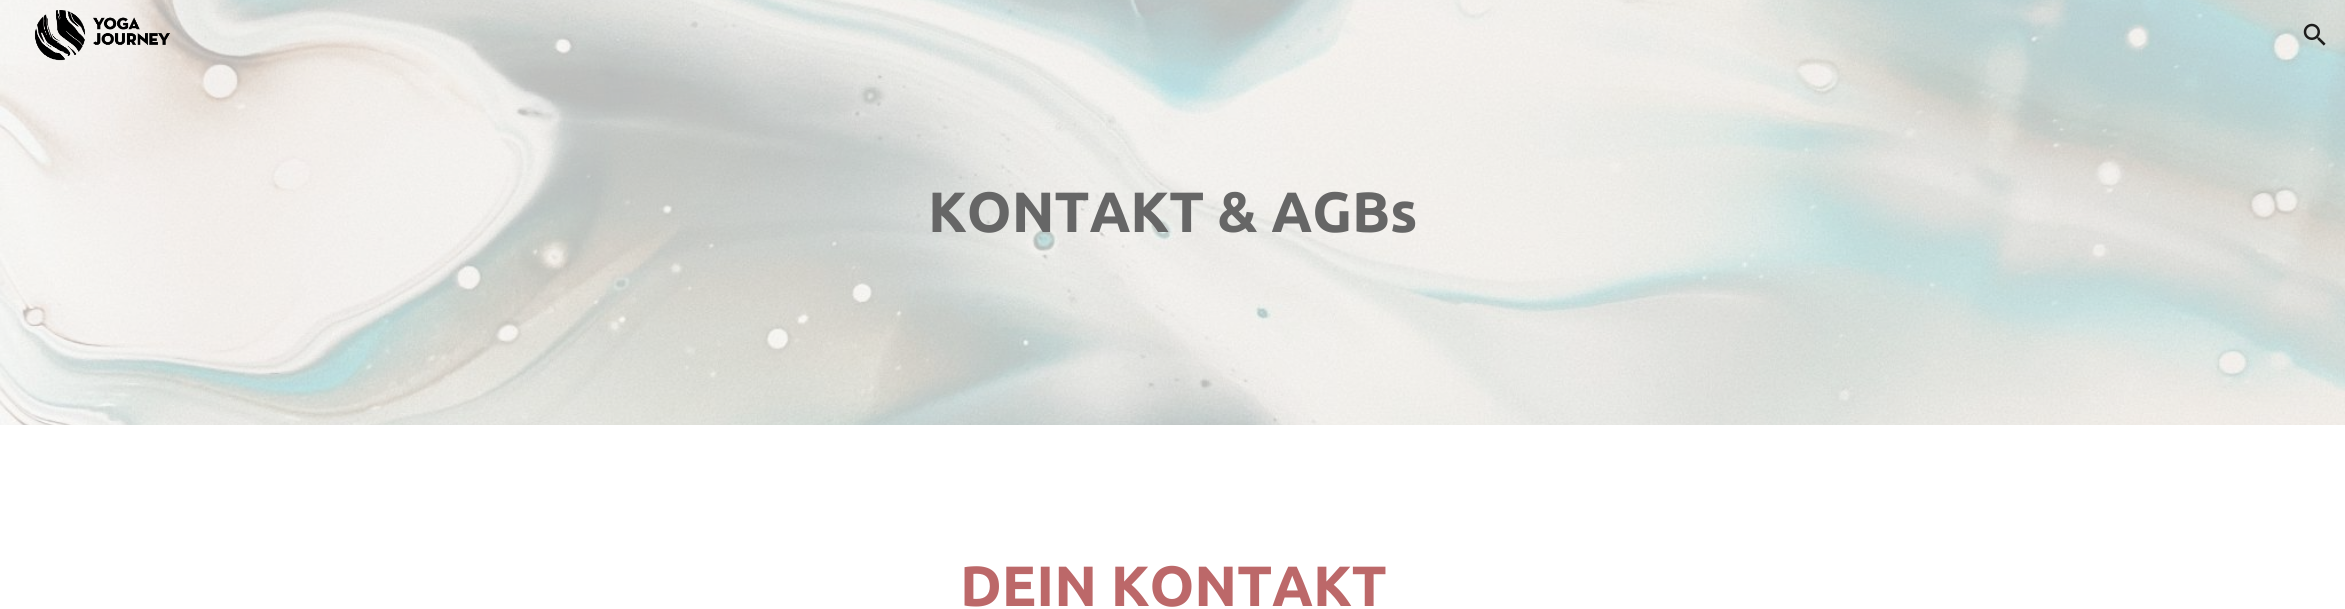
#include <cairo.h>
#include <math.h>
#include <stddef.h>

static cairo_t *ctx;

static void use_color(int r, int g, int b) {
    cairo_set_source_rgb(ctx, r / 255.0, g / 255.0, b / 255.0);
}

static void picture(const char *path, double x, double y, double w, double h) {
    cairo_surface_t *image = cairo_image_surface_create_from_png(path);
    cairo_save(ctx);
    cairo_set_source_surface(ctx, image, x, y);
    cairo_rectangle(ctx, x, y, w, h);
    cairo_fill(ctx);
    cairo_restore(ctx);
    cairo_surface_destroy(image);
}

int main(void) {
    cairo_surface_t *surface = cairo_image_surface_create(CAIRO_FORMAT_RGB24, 2345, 609);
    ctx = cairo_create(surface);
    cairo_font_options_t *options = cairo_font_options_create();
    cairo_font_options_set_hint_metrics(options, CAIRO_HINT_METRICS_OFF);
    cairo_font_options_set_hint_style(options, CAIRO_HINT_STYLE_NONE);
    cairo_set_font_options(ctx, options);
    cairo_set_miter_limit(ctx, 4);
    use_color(255, 255, 255);
    cairo_paint(ctx);
    picture("img3.png", 0, 0, 2345, 425);
    picture("img1.png", 34, 10, 136, 51);
    picture("img2.png", 2303, 23, 23, 23);
    cairo_select_font_face(ctx, "Ubuntu", CAIRO_FONT_SLANT_NORMAL, CAIRO_FONT_WEIGHT_BOLD);
    cairo_set_font_size(ctx, 56.75);
    use_color(102, 102, 102);
    cairo_move_to(ctx, 928, 232);
    cairo_show_text(ctx, "KONTAKT & AGBs");
    use_color(188, 104, 105);
    cairo_move_to(ctx, 960, 606);
    cairo_show_text(ctx, "DEIN KONTAKT");
    cairo_surface_write_to_png(surface, "result.png");
    cairo_font_options_destroy(options);
    cairo_destroy(ctx);
    cairo_surface_destroy(surface);
    return 0;
}
